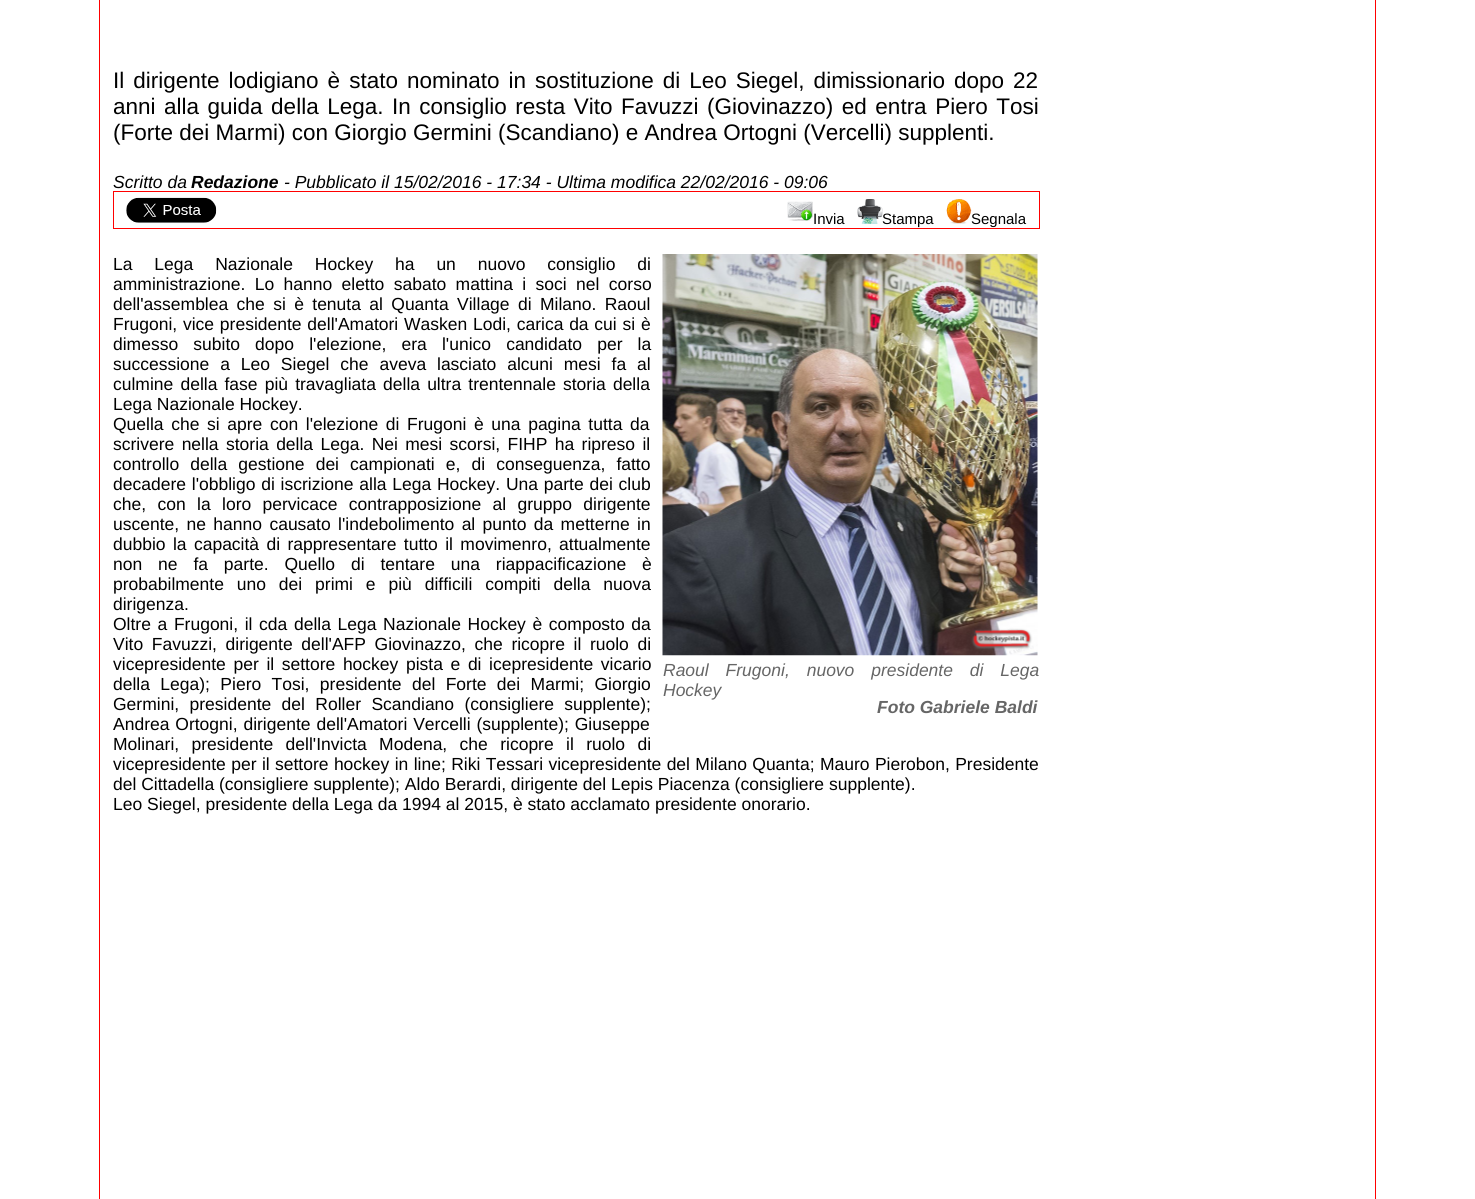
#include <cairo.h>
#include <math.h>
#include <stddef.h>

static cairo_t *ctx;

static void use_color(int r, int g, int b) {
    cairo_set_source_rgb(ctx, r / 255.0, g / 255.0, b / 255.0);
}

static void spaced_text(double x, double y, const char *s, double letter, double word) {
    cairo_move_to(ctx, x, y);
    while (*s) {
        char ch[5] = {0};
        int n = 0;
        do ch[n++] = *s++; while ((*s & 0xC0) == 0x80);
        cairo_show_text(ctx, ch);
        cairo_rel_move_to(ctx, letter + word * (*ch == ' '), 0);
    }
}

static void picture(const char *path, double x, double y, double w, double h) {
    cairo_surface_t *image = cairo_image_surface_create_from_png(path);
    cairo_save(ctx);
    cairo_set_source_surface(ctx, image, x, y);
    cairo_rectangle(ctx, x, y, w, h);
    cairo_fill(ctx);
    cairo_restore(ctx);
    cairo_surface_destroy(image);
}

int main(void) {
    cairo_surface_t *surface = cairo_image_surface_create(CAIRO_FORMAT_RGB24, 1475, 1199);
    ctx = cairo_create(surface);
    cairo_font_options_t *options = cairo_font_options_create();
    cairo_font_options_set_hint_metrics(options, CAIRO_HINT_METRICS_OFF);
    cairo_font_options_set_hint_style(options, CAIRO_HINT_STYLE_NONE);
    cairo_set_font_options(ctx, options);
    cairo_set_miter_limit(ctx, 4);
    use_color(255, 255, 255);
    cairo_paint(ctx);
    cairo_rectangle(ctx, 99.5, -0.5, 1276, 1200);
    use_color(255, 0, 0);
    cairo_set_line_width(ctx, 1);
    cairo_stroke(ctx);
    cairo_select_font_face(ctx, "Liberation Sans", CAIRO_FONT_SLANT_NORMAL, CAIRO_FONT_WEIGHT_NORMAL);
    cairo_set_font_size(ctx, 22.5);
    use_color(0, 0, 0);
    spaced_text(113, 88, "Il dirigente lodigiano è stato nominato in sostituzione di Leo Siegel, dimissionario dopo 22", 0, 2.75);
    spaced_text(113, 114, "anni alla guida della Lega. In consiglio resta Vito Favuzzi (Giovinazzo) ed entra Piero Tosi", 0, 2.25);
    cairo_move_to(ctx, 113, 140);
    cairo_show_text(ctx, "(Forte dei Marmi) con Giorgio Germini (Scandiano) e Andrea Ortogni (Vercelli) supplenti.");
    cairo_select_font_face(ctx, "Liberation Sans", CAIRO_FONT_SLANT_ITALIC, CAIRO_FONT_WEIGHT_NORMAL);
    cairo_set_font_size(ctx, 17.5);
    cairo_move_to(ctx, 113, 188);
    cairo_show_text(ctx, "Scritto da");
    cairo_select_font_face(ctx, "Liberation Sans", CAIRO_FONT_SLANT_ITALIC, CAIRO_FONT_WEIGHT_BOLD);
    cairo_move_to(ctx, 191, 188);
    cairo_show_text(ctx, "Redazione");
    cairo_select_font_face(ctx, "Liberation Sans", CAIRO_FONT_SLANT_ITALIC, CAIRO_FONT_WEIGHT_NORMAL);
    cairo_move_to(ctx, 284, 188);
    cairo_show_text(ctx, "- Pubblicato il 15/02/2016 - 17:34 - Ultima modifica 22/02/2016 - 09:06");
    cairo_rectangle(ctx, 113.5, 191.5, 926, 37);
    use_color(255, 0, 0);
    cairo_stroke(ctx);
    picture("img1.png", 126, 197, 91, 26);
    picture("img2.png", 787, 201, 26, 20);
    cairo_select_font_face(ctx, "Liberation Sans", CAIRO_FONT_SLANT_NORMAL, CAIRO_FONT_WEIGHT_NORMAL);
    cairo_set_font_size(ctx, 15);
    use_color(0, 0, 0);
    cairo_move_to(ctx, 813, 224);
    cairo_show_text(ctx, "Invia");
    picture("img3.png", 857, 199, 26, 25);
    cairo_move_to(ctx, 882, 224);
    cairo_show_text(ctx, "Stampa");
    picture("img4.png", 946, 199, 26, 25);
    cairo_move_to(ctx, 971, 224);
    cairo_show_text(ctx, "Segnala");
    cairo_set_font_size(ctx, 17.5);
    spaced_text(113, 270, "La Lega Nazionale Hockey ha un nuovo consiglio di", 0, 17);
    spaced_text(113, 290, "amministrazione. Lo hanno eletto sabato mattina i soci nel corso", 0, 4.5);
    spaced_text(113, 310, "dell'assemblea che si è tenuta al Quanta Village di Milano. Raoul", 0, 3.5);
    spaced_text(113, 330, "Frugoni, vice presidente dell'Amatori Wasken Lodi, carica da cui si è", 0, 0.9);
    spaced_text(113, 350, "dimesso subito dopo l'elezione, era l'unico candidato per la", 0, 10.25);
    spaced_text(113, 370, "successione a Leo Siegel che aveva lasciato alcuni mesi fa al", 0, 6);
    spaced_text(113, 390, "culmine della fase più travagliata della ultra trentennale storia della", 0, 2.25);
    cairo_move_to(ctx, 113, 410);
    cairo_show_text(ctx, "Lega Nazionale Hockey.");
    spaced_text(113, 430, "Quella che si apre con l'elezione di Frugoni è una pagina tutta da", 0, 2.75);
    spaced_text(113, 450, "scrivere nella storia della Lega. Nei mesi scorsi, FIHP ha ripreso il", 0, 2.5);
    spaced_text(113, 470, "controllo della gestione dei campionati e, di conseguenza, fatto", 0, 6.25);
    spaced_text(113, 490, "decadere l'obbligo di iscrizione alla Lega Hockey. Una parte dei club", 0, 0.9);
    spaced_text(113, 510, "che, con la loro pervicace contrapposizione al gruppo dirigente", 0, 6.5);
    spaced_text(113, 530, "uscente, ne hanno causato l'indebolimento al punto da metterne in", 0, 2.5);
    spaced_text(113, 550, "dubbio la capacità di rappresentare tutto il movimenro, attualmente", 0, 2.5);
    spaced_text(113, 570, "non ne fa parte. Quello di tentare una riappacificazione è", 0, 11);
    spaced_text(113, 590, "probabilmente uno dei primi e più difficili compiti della nuova", 0, 8);
    cairo_move_to(ctx, 113, 610);
    cairo_show_text(ctx, "dirigenza.");
    spaced_text(113, 630, "Oltre a Frugoni, il cda della Lega Nazionale Hockey è composto da", 0, 1.75);
    spaced_text(113, 650, "Vito Favuzzi, dirigente dell'AFP Giovinazzo, che ricopre il ruolo di", 0, 3.75);
    spaced_text(113, 670, "vicepresidente per il settore hockey pista e di icepresidente vicario", 0, 2.75);
    spaced_text(113, 690, "della Lega); Piero Tosi, presidente del Forte dei Marmi; Giorgio", 0, 5.5);
    spaced_text(113, 710, "Germini, presidente del Roller Scandiano (consigliere supplente);", 0, 5.5);
    spaced_text(113, 730, "Andrea Ortogni, dirigente dell'Amatori Vercelli (supplente); Giuseppe", 0, 1);
    spaced_text(113, 750, "Molinari, presidente dell'Invicta Modena, che ricopre il ruolo di", 0, 7.5);
    spaced_text(113, 770, "vicepresidente per il settore hockey in line; Riki Tessari vicepresidente del Milano Quanta; Mauro Pierobon, Presidente", 0, 0.5);
    cairo_move_to(ctx, 113, 790);
    cairo_show_text(ctx, "del Cittadella (consigliere supplente); Aldo Berardi, dirigente del Lepis Piacenza (consigliere supplente).");
    cairo_move_to(ctx, 113, 810);
    cairo_show_text(ctx, "Leo Siegel, presidente della Lega da 1994 al 2015, è stato acclamato presidente onorario.");
    picture("img5.png", 662, 254, 376, 402);
    cairo_select_font_face(ctx, "Liberation Sans", CAIRO_FONT_SLANT_ITALIC, CAIRO_FONT_WEIGHT_NORMAL);
    use_color(102, 102, 102);
    spaced_text(663, 676, "Raoul Frugoni, nuovo presidente di Lega", 0, 12);
    cairo_move_to(ctx, 663, 696);
    cairo_show_text(ctx, "Hockey");
    cairo_select_font_face(ctx, "Liberation Sans", CAIRO_FONT_SLANT_ITALIC, CAIRO_FONT_WEIGHT_BOLD);
    cairo_move_to(ctx, 877, 713);
    cairo_show_text(ctx, "Foto Gabriele Baldi");
    cairo_surface_write_to_png(surface, "result.png");
    cairo_font_options_destroy(options);
    cairo_destroy(ctx);
    cairo_surface_destroy(surface);
    return 0;
}
